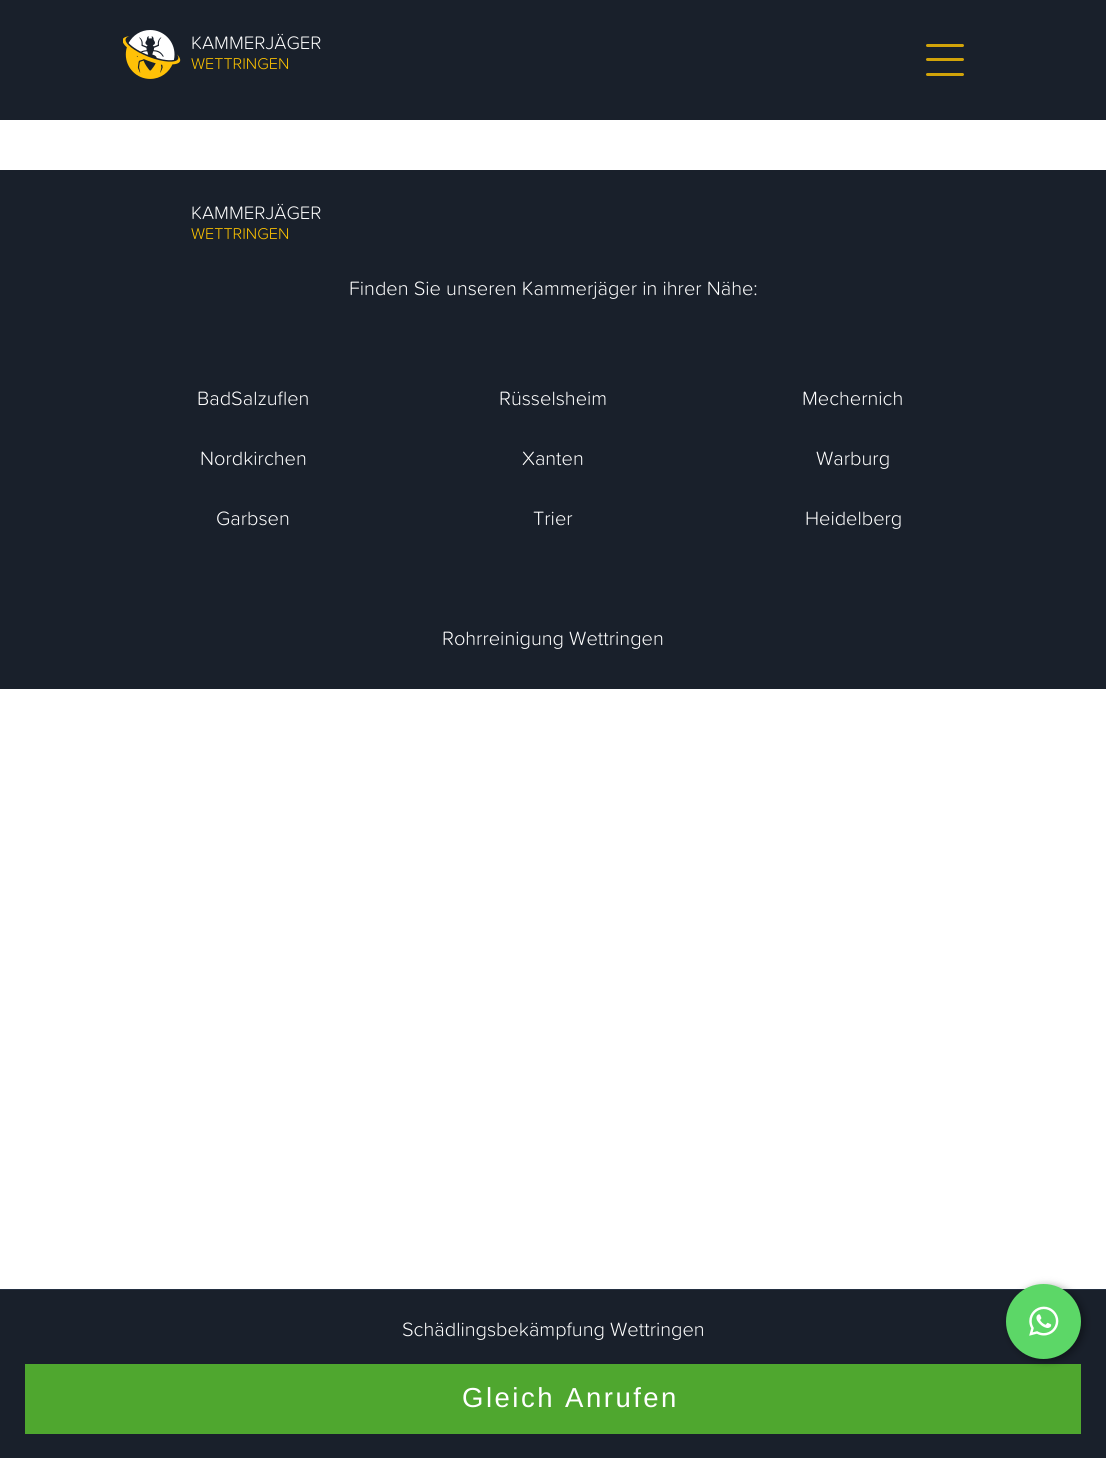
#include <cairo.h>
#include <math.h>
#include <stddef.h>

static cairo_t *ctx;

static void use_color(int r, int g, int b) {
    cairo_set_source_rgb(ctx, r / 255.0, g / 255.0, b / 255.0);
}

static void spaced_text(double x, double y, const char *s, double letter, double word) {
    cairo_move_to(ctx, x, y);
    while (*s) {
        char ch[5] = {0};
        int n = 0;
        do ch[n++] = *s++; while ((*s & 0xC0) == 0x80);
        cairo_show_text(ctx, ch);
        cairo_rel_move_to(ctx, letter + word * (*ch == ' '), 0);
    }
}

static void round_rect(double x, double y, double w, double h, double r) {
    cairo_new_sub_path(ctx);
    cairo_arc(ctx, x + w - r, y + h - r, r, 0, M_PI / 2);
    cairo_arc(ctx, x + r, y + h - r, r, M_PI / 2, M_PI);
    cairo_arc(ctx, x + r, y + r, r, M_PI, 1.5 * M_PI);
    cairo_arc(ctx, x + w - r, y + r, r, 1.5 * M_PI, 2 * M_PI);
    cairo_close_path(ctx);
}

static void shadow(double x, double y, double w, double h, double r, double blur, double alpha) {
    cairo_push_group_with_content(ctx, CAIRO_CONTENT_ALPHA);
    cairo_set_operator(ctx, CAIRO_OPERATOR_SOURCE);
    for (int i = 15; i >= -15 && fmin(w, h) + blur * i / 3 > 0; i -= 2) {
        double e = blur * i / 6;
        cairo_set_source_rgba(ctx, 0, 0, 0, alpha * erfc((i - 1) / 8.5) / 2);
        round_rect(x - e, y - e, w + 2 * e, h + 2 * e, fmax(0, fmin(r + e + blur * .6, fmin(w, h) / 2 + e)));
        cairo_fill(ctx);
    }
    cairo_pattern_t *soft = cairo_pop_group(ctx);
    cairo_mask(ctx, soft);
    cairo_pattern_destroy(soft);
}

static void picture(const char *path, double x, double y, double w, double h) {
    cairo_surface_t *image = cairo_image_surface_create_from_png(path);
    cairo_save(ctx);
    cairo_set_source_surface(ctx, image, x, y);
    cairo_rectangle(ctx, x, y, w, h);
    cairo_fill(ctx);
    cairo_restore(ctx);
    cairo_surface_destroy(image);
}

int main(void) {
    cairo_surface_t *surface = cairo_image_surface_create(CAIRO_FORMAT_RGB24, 1106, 1458);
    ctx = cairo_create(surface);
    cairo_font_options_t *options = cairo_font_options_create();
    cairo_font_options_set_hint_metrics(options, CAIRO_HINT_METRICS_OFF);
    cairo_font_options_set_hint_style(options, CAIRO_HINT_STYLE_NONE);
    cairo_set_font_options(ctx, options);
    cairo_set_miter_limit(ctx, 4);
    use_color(255, 255, 255);
    cairo_paint(ctx);
    use_color(25, 32, 43);
    cairo_rectangle(ctx, 0, 0, 1106, 120);
    cairo_fill(ctx);
    picture("img1.png", 123, 30, 58, 49);
    cairo_select_font_face(ctx, "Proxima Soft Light", CAIRO_FONT_SLANT_NORMAL, CAIRO_FONT_WEIGHT_NORMAL);
    cairo_set_font_size(ctx, 18.75);
    use_color(255, 255, 255);
    cairo_move_to(ctx, 191, 49);
    cairo_show_text(ctx, "KAMMERJÄGER");
    cairo_set_font_size(ctx, 16.25);
    use_color(255, 196, 0);
    cairo_move_to(ctx, 191, 69);
    cairo_show_text(ctx, "WETTRINGEN");
    use_color(209, 163, 9);
    round_rect(926, 44, 38, 3, 1.5);
    cairo_fill(ctx);
    round_rect(926, 58, 38, 3, 1.5);
    cairo_fill(ctx);
    round_rect(926, 73, 38, 3, 1.5);
    cairo_fill(ctx);
    use_color(25, 32, 43);
    cairo_rectangle(ctx, 0, 170, 1106, 519);
    cairo_fill(ctx);
    cairo_set_font_size(ctx, 18.75);
    use_color(255, 255, 255);
    cairo_move_to(ctx, 191, 219);
    cairo_show_text(ctx, "KAMMERJÄGER");
    cairo_set_font_size(ctx, 16.25);
    use_color(255, 196, 0);
    cairo_move_to(ctx, 191, 239);
    cairo_show_text(ctx, "WETTRINGEN");
    cairo_set_font_size(ctx, 20);
    use_color(255, 255, 255);
    cairo_move_to(ctx, 349, 295);
    cairo_show_text(ctx, "Finden Sie unseren Kammerjäger in ihrer Nähe:");
    cairo_move_to(ctx, 197, 405);
    cairo_show_text(ctx, "BadSalzuflen");
    cairo_move_to(ctx, 499, 405);
    cairo_show_text(ctx, "Rüsselsheim");
    cairo_move_to(ctx, 802, 405);
    cairo_show_text(ctx, "Mechernich");
    cairo_move_to(ctx, 200, 465);
    cairo_show_text(ctx, "Nordkirchen");
    cairo_move_to(ctx, 522, 465);
    cairo_show_text(ctx, "Xanten");
    cairo_move_to(ctx, 816, 465);
    cairo_show_text(ctx, "Warburg");
    cairo_move_to(ctx, 216, 525);
    cairo_show_text(ctx, "Garbsen");
    cairo_move_to(ctx, 533, 525);
    cairo_show_text(ctx, "Trier");
    cairo_move_to(ctx, 805, 525);
    cairo_show_text(ctx, "Heidelberg");
    cairo_move_to(ctx, 442, 645);
    cairo_show_text(ctx, "Rohrreinigung Wettringen");
    use_color(25, 32, 43);
    cairo_rectangle(ctx, 0, 1290, 1106, 168);
    cairo_fill(ctx);
    use_color(36, 48, 66);
    cairo_rectangle(ctx, 0, 1289, 1106, 1);
    cairo_fill(ctx);
    use_color(255, 255, 255);
    cairo_move_to(ctx, 402, 1336);
    cairo_show_text(ctx, "Schädlingsbekämpfung Wettringen");
    use_color(79, 167, 47);
    cairo_rectangle(ctx, 25, 1364, 1056, 70);
    cairo_fill(ctx);
    cairo_select_font_face(ctx, "Liberation Sans", CAIRO_FONT_SLANT_NORMAL, CAIRO_FONT_WEIGHT_NORMAL);
    cairo_set_font_size(ctx, 27.5);
    use_color(255, 255, 255);
    spaced_text(462, 1407, "Gleich Anrufen", 2.5, 0);
    use_color(0, 0, 0);
    shadow(1009, 1286, 75, 75, 37.5, 4, 0.4);
    use_color(92, 215, 103);
    cairo_arc(ctx, 1043.5, 1321.5, 37.5, 0, 2 * M_PI);
    cairo_fill(ctx);
    picture("img2.png", 1029, 1306, 30, 30);
    cairo_surface_write_to_png(surface, "result.png");
    cairo_font_options_destroy(options);
    cairo_destroy(ctx);
    cairo_surface_destroy(surface);
    return 0;
}
